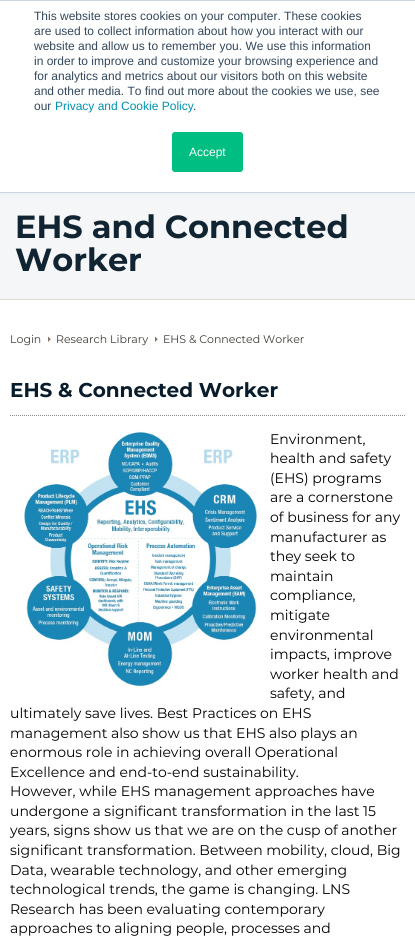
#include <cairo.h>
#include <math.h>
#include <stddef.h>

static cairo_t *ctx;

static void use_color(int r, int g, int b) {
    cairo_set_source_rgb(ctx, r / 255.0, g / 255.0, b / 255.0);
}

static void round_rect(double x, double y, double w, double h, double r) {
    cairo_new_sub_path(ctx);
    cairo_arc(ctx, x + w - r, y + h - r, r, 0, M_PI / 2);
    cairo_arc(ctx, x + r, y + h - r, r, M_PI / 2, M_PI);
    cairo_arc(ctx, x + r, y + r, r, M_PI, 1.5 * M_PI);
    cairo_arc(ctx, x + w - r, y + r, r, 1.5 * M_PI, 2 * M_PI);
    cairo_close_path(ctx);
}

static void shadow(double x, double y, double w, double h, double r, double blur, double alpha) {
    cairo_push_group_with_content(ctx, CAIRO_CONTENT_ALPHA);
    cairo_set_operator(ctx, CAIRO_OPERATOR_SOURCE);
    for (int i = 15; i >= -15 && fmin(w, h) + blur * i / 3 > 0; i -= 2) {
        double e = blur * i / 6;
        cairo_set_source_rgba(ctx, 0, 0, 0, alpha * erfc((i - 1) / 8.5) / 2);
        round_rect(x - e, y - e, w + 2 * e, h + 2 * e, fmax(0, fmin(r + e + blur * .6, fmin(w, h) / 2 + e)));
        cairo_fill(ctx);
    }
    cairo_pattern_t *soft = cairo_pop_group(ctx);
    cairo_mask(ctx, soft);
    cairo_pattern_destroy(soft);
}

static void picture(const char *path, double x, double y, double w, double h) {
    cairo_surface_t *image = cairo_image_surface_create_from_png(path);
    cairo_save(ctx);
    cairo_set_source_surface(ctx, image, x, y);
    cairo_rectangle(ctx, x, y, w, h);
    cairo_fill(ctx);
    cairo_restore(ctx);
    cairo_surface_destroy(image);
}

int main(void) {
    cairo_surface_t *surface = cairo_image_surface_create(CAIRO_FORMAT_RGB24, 415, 938);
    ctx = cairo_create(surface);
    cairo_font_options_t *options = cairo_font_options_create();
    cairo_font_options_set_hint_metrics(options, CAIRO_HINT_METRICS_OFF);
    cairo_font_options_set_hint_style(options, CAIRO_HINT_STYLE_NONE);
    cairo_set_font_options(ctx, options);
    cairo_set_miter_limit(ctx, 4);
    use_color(245, 246, 247);
    cairo_paint(ctx);
    use_color(234, 240, 246);
    shadow(0, 1, 415, 193, 0, 2.5, 1);
    use_color(255, 255, 255);
    cairo_rectangle(ctx, 0, 1, 415, 191);
    cairo_fill(ctx);
    use_color(203, 214, 226);
    cairo_rectangle(ctx, 0, 0, 415, 1);
    cairo_fill(ctx);
    cairo_rectangle(ctx, 0, 192, 415, 1);
    cairo_fill(ctx);
    cairo_select_font_face(ctx, "Liberation Sans", CAIRO_FONT_SLANT_NORMAL, CAIRO_FONT_WEIGHT_NORMAL);
    cairo_set_font_size(ctx, 12);
    use_color(51, 71, 91);
    cairo_move_to(ctx, 34, 20);
    cairo_show_text(ctx, "This website stores cookies on your computer. These cookies");
    cairo_move_to(ctx, 34, 35);
    cairo_show_text(ctx, "are used to collect information about how you interact with our");
    cairo_move_to(ctx, 34, 50);
    cairo_show_text(ctx, "website and allow us to remember you. We use this information");
    cairo_move_to(ctx, 34, 65);
    cairo_show_text(ctx, "in order to improve and customize your browsing experience and");
    cairo_move_to(ctx, 34, 80);
    cairo_show_text(ctx, "for analytics and metrics about our visitors both on this website");
    cairo_move_to(ctx, 34, 95);
    cairo_show_text(ctx, "and other media. To find out more about the cookies we use, see");
    cairo_move_to(ctx, 34, 110);
    cairo_show_text(ctx, "our");
    use_color(0, 145, 174);
    cairo_move_to(ctx, 55, 110);
    cairo_show_text(ctx, "Privacy and Cookie Policy");
    use_color(51, 71, 91);
    cairo_move_to(ctx, 193, 110);
    cairo_show_text(ctx, ".");
    use_color(0, 190, 129);
    round_rect(172.5, 132.5, 70, 39, 2.5);
    cairo_fill_preserve(ctx);
    cairo_set_line_width(ctx, 1);
    cairo_stroke(ctx);
    use_color(255, 255, 255);
    cairo_move_to(ctx, 189, 156);
    cairo_show_text(ctx, "Accept");
    cairo_select_font_face(ctx, "Montserrat", CAIRO_FONT_SLANT_NORMAL, CAIRO_FONT_WEIGHT_BOLD);
    cairo_set_font_size(ctx, 32);
    use_color(17, 36, 50);
    cairo_move_to(ctx, 15, 238);
    cairo_show_text(ctx, "EHS and Connected");
    cairo_move_to(ctx, 15, 271);
    cairo_show_text(ctx, "Worker");
    use_color(255, 255, 255);
    cairo_rectangle(ctx, 0, 300, 415, 638);
    cairo_fill(ctx);
    use_color(220, 220, 213);
    cairo_rectangle(ctx, 0, 299, 415, 1);
    cairo_fill(ctx);
    cairo_select_font_face(ctx, "Montserrat", CAIRO_FONT_SLANT_NORMAL, CAIRO_FONT_WEIGHT_NORMAL);
    cairo_set_font_size(ctx, 11);
    use_color(64, 61, 56);
    cairo_move_to(ctx, 10, 343);
    cairo_show_text(ctx, "Login");
    picture("img1.png", 48, 336, 3, 6);
    cairo_move_to(ctx, 56, 343);
    cairo_show_text(ctx, "Research Library");
    picture("img1.png", 155, 336, 3, 6);
    cairo_move_to(ctx, 163, 343);
    cairo_show_text(ctx, "EHS & Connected Worker");
    cairo_new_path(ctx);
    cairo_move_to(ctx, 10, 415.5);
    cairo_line_to(ctx, 405, 415.5);
    use_color(139, 139, 134);
    cairo_set_dash(ctx, (double[]){1, 1}, 2, 0);
    cairo_stroke(ctx);
    cairo_select_font_face(ctx, "Montserrat", CAIRO_FONT_SLANT_NORMAL, CAIRO_FONT_WEIGHT_BOLD);
    cairo_set_font_size(ctx, 20);
    use_color(8, 28, 43);
    cairo_move_to(ctx, 10, 397);
    cairo_show_text(ctx, "EHS & Connected Worker");
    picture("img2.png", 24, 431, 234, 256);
    cairo_select_font_face(ctx, "Montserrat", CAIRO_FONT_SLANT_NORMAL, CAIRO_FONT_WEIGHT_NORMAL);
    cairo_set_font_size(ctx, 14);
    use_color(0, 0, 0);
    cairo_move_to(ctx, 270, 444);
    cairo_show_text(ctx, "Environment,");
    cairo_move_to(ctx, 270, 463);
    cairo_show_text(ctx, "health and safety");
    cairo_move_to(ctx, 270, 483);
    cairo_show_text(ctx, "(EHS) programs");
    cairo_move_to(ctx, 270, 502);
    cairo_show_text(ctx, "are a cornerstone");
    cairo_move_to(ctx, 270, 522);
    cairo_show_text(ctx, "of business for any");
    cairo_move_to(ctx, 270, 542);
    cairo_show_text(ctx, "manufacturer as");
    cairo_move_to(ctx, 270, 561);
    cairo_show_text(ctx, "they seek to");
    cairo_move_to(ctx, 270, 581);
    cairo_show_text(ctx, "maintain");
    cairo_move_to(ctx, 270, 600);
    cairo_show_text(ctx, "compliance,");
    cairo_move_to(ctx, 270, 620);
    cairo_show_text(ctx, "mitigate");
    cairo_move_to(ctx, 270, 640);
    cairo_show_text(ctx, "environmental");
    cairo_move_to(ctx, 270, 659);
    cairo_show_text(ctx, "impacts, improve");
    cairo_move_to(ctx, 270, 679);
    cairo_show_text(ctx, "worker health and");
    cairo_move_to(ctx, 270, 698);
    cairo_show_text(ctx, "safety, and");
    cairo_move_to(ctx, 10, 718);
    cairo_show_text(ctx, "ultimately save lives. Best Practices on EHS");
    cairo_move_to(ctx, 10, 738);
    cairo_show_text(ctx, "management also show us that EHS also plays an");
    cairo_move_to(ctx, 10, 757);
    cairo_show_text(ctx, "enormous role in achieving overall Operational");
    cairo_move_to(ctx, 10, 777);
    cairo_show_text(ctx, "Excellence and end-to-end sustainability.");
    cairo_move_to(ctx, 10, 796);
    cairo_show_text(ctx, "However, while EHS management approaches have");
    cairo_move_to(ctx, 10, 816);
    cairo_show_text(ctx, "undergone a significant transformation in the last 15");
    cairo_move_to(ctx, 10, 835);
    cairo_show_text(ctx, "years, signs show us that we are on the cusp of another");
    cairo_move_to(ctx, 10, 855);
    cairo_show_text(ctx, "significant transformation. Between mobility, cloud, Big");
    cairo_move_to(ctx, 10, 875);
    cairo_show_text(ctx, "Data, wearable technology, and other emerging");
    cairo_move_to(ctx, 10, 894);
    cairo_show_text(ctx, "technological trends, the game is changing. LNS");
    cairo_move_to(ctx, 10, 914);
    cairo_show_text(ctx, "Research has been evaluating contemporary");
    cairo_move_to(ctx, 10, 933);
    cairo_show_text(ctx, "approaches to aligning people, processes and");
    cairo_surface_write_to_png(surface, "result.png");
    cairo_font_options_destroy(options);
    cairo_destroy(ctx);
    cairo_surface_destroy(surface);
    return 0;
}
